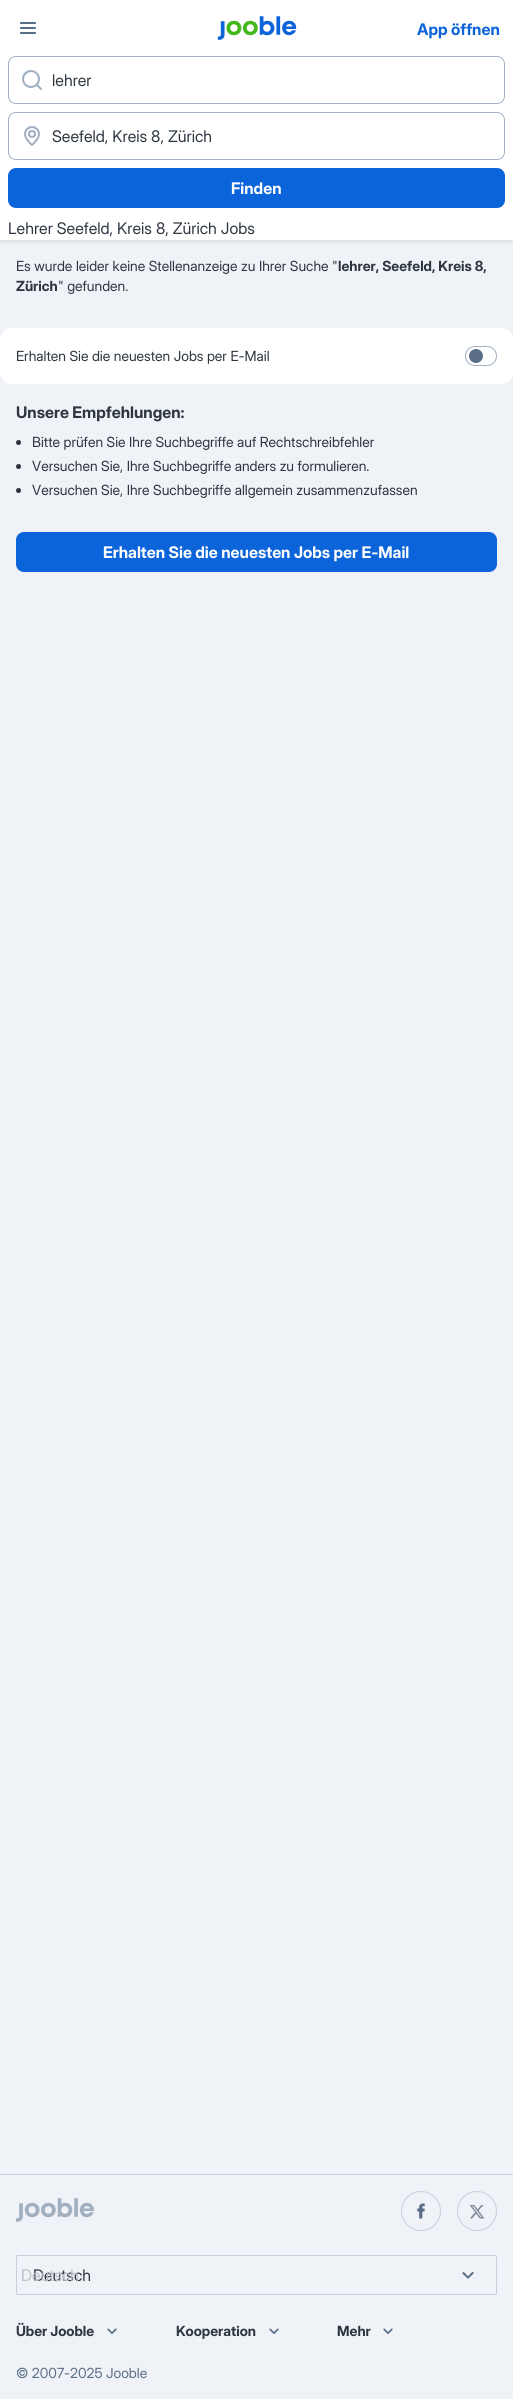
#include <cairo.h>
#include <math.h>
#include <stddef.h>

static cairo_t *ctx;

static void use_color(int r, int g, int b) {
    cairo_set_source_rgb(ctx, r / 255.0, g / 255.0, b / 255.0);
}

static void round_rect(double x, double y, double w, double h, double r) {
    cairo_new_sub_path(ctx);
    cairo_arc(ctx, x + w - r, y + h - r, r, 0, M_PI / 2);
    cairo_arc(ctx, x + r, y + h - r, r, M_PI / 2, M_PI);
    cairo_arc(ctx, x + r, y + r, r, M_PI, 1.5 * M_PI);
    cairo_arc(ctx, x + w - r, y + r, r, 1.5 * M_PI, 2 * M_PI);
    cairo_close_path(ctx);
}

static void shadow(double x, double y, double w, double h, double r, double blur, double alpha) {
    cairo_push_group_with_content(ctx, CAIRO_CONTENT_ALPHA);
    cairo_set_operator(ctx, CAIRO_OPERATOR_SOURCE);
    for (int i = 15; i >= -15 && fmin(w, h) + blur * i / 3 > 0; i -= 2) {
        double e = blur * i / 6;
        cairo_set_source_rgba(ctx, 0, 0, 0, alpha * erfc((i - 1) / 8.5) / 2);
        round_rect(x - e, y - e, w + 2 * e, h + 2 * e, fmax(0, fmin(r + e + blur * .6, fmin(w, h) / 2 + e)));
        cairo_fill(ctx);
    }
    cairo_pattern_t *soft = cairo_pop_group(ctx);
    cairo_mask(ctx, soft);
    cairo_pattern_destroy(soft);
}

static void picture(const char *path, double x, double y, double w, double h) {
    cairo_surface_t *image = cairo_image_surface_create_from_png(path);
    cairo_save(ctx);
    cairo_set_source_surface(ctx, image, x, y);
    cairo_rectangle(ctx, x, y, w, h);
    cairo_fill(ctx);
    cairo_restore(ctx);
    cairo_surface_destroy(image);
}

int main(void) {
    cairo_surface_t *surface = cairo_image_surface_create(CAIRO_FORMAT_RGB24, 513, 2399);
    ctx = cairo_create(surface);
    cairo_font_options_t *options = cairo_font_options_create();
    cairo_font_options_set_hint_metrics(options, CAIRO_HINT_METRICS_OFF);
    cairo_font_options_set_hint_style(options, CAIRO_HINT_STYLE_NONE);
    cairo_set_font_options(ctx, options);
    cairo_set_miter_limit(ctx, 4);
    use_color(239, 242, 246);
    cairo_paint(ctx);
    use_color(23, 30, 38);
    shadow(0, 0, 513, 240, 0, 3, 0.12);
    shadow(0, 0, 513, 240, 0, 2, 0.08);
    use_color(255, 255, 255);
    cairo_rectangle(ctx, 0, 0, 513, 240);
    cairo_fill(ctx);
    picture("img1.png", 20, 22, 16, 12);
    picture("img2.png", 217, 16, 80, 24);
    cairo_select_font_face(ctx, "Inter Display", CAIRO_FONT_SLANT_NORMAL, CAIRO_FONT_WEIGHT_BOLD);
    cairo_set_font_size(ctx, 16);
    use_color(11, 100, 217);
    cairo_move_to(ctx, 417, 35);
    cairo_show_text(ctx, "App öffnen");
    round_rect(8.5, 56.5, 496, 47, 7.5);
    use_color(161, 175, 193);
    cairo_set_line_width(ctx, 1);
    cairo_stroke(ctx);
    picture("img3.png", 22, 70, 20, 20);
    cairo_select_font_face(ctx, "Inter Display", CAIRO_FONT_SLANT_NORMAL, CAIRO_FONT_WEIGHT_NORMAL);
    use_color(45, 53, 64);
    cairo_move_to(ctx, 52, 86);
    cairo_show_text(ctx, "lehrer");
    round_rect(8.5, 112.5, 496, 47, 7.5);
    use_color(161, 175, 193);
    cairo_stroke(ctx);
    picture("img4.png", 24, 126, 16, 20);
    use_color(45, 53, 64);
    cairo_move_to(ctx, 52, 142);
    cairo_show_text(ctx, "Seefeld, Kreis 8, Zürich");
    use_color(11, 100, 217);
    round_rect(8, 168, 497, 40, 8);
    cairo_fill(ctx);
    cairo_select_font_face(ctx, "Inter Display", CAIRO_FONT_SLANT_NORMAL, CAIRO_FONT_WEIGHT_BOLD);
    use_color(255, 255, 255);
    cairo_move_to(ctx, 231, 194);
    cairo_show_text(ctx, "Finden");
    cairo_select_font_face(ctx, "Inter Display", CAIRO_FONT_SLANT_NORMAL, CAIRO_FONT_WEIGHT_NORMAL);
    use_color(45, 53, 64);
    cairo_move_to(ctx, 8, 234);
    cairo_show_text(ctx, "Lehrer Seefeld, Kreis 8, Zürich Jobs");
    cairo_set_font_size(ctx, 14);
    cairo_move_to(ctx, 16, 271);
    cairo_show_text(ctx, "Es wurde leider keine Stellenanzeige zu Ihrer Suche \"");
    cairo_select_font_face(ctx, "Inter Display", CAIRO_FONT_SLANT_NORMAL, CAIRO_FONT_WEIGHT_BOLD);
    cairo_move_to(ctx, 338, 271);
    cairo_show_text(ctx, "lehrer, Seefeld, Kreis 8,");
    cairo_move_to(ctx, 16, 291);
    cairo_show_text(ctx, "Zürich");
    cairo_select_font_face(ctx, "Inter Display", CAIRO_FONT_SLANT_NORMAL, CAIRO_FONT_WEIGHT_NORMAL);
    cairo_move_to(ctx, 58, 291);
    cairo_show_text(ctx, "\" gefunden.");
    use_color(255, 255, 255);
    round_rect(0, 328, 513, 56, 12);
    cairo_fill(ctx);
    use_color(45, 53, 64);
    cairo_move_to(ctx, 16, 361);
    cairo_show_text(ctx, "Erhalten Sie die neuesten Jobs per E-Mail");
    round_rect(465.5, 346.5, 31, 19, 9.5);
    use_color(161, 175, 193);
    cairo_stroke(ctx);
    use_color(90, 111, 135);
    cairo_arc(ctx, 476, 356, 7, 0, 2 * M_PI);
    cairo_fill(ctx);
    cairo_select_font_face(ctx, "Inter Display", CAIRO_FONT_SLANT_NORMAL, CAIRO_FONT_WEIGHT_BOLD);
    cairo_set_font_size(ctx, 16);
    use_color(45, 53, 64);
    cairo_move_to(ctx, 16, 418);
    cairo_show_text(ctx, "Unsere Empfehlungen:");
    cairo_new_path(ctx);
    cairo_arc(ctx, 18.5, 442.5, 2.5, 0, 2 * M_PI);
    cairo_fill(ctx);
    cairo_select_font_face(ctx, "Inter Display", CAIRO_FONT_SLANT_NORMAL, CAIRO_FONT_WEIGHT_NORMAL);
    cairo_set_font_size(ctx, 14);
    cairo_move_to(ctx, 32, 447);
    cairo_show_text(ctx, "Bitte prüfen Sie Ihre Suchbegriffe auf Rechtschreibfehler");
    cairo_new_path(ctx);
    cairo_arc(ctx, 18.5, 466.5, 2.5, 0, 2 * M_PI);
    cairo_fill(ctx);
    cairo_move_to(ctx, 32, 471);
    cairo_show_text(ctx, "Versuchen Sie, Ihre Suchbegriffe anders zu formulieren.");
    cairo_new_path(ctx);
    cairo_arc(ctx, 18.5, 490.5, 2.5, 0, 2 * M_PI);
    cairo_fill(ctx);
    cairo_move_to(ctx, 32, 495);
    cairo_show_text(ctx, "Versuchen Sie, Ihre Suchbegriffe allgemein zusammenzufassen");
    use_color(11, 100, 217);
    round_rect(16, 532, 481, 40, 8);
    cairo_fill(ctx);
    cairo_select_font_face(ctx, "Inter Display", CAIRO_FONT_SLANT_NORMAL, CAIRO_FONT_WEIGHT_BOLD);
    cairo_set_font_size(ctx, 16);
    use_color(255, 255, 255);
    cairo_move_to(ctx, 103, 558);
    cairo_show_text(ctx, "Erhalten Sie die neuesten Jobs per E-Mail");
    use_color(197, 208, 222);
    cairo_rectangle(ctx, 0, 2174, 513, 1);
    cairo_fill(ctx);
    picture("img5.png", 16, 2198, 78, 24);
    cairo_arc(ctx, 421, 2211, 19.5, 0, 2 * M_PI);
    cairo_stroke(ctx);
    picture("img6.png", 417, 2203, 8, 16);
    cairo_arc(ctx, 477, 2211, 19.5, 0, 2 * M_PI);
    cairo_stroke(ctx);
    picture("img7.png", 469, 2205, 16, 14);
    round_rect(16.5, 2255.5, 480, 39, 1.5);
    cairo_stroke(ctx);
    cairo_select_font_face(ctx, "Inter Display", CAIRO_FONT_SLANT_NORMAL, CAIRO_FONT_WEIGHT_NORMAL);
    use_color(45, 53, 64);
    cairo_move_to(ctx, 33, 2281);
    cairo_show_text(ctx, "Deutsch");
    use_color(188, 192, 198);
    cairo_move_to(ctx, 21, 2281);
    cairo_show_text(ctx, "Deutsch");
    picture("img8.png", 462, 2272, 12, 7);
    cairo_select_font_face(ctx, "Inter Display", CAIRO_FONT_SLANT_NORMAL, CAIRO_FONT_WEIGHT_BOLD);
    cairo_set_font_size(ctx, 14);
    use_color(45, 53, 64);
    cairo_move_to(ctx, 16, 2336);
    cairo_show_text(ctx, "Über Jooble");
    picture("img9.png", 107, 2328, 10, 6);
    cairo_move_to(ctx, 176, 2336);
    cairo_show_text(ctx, "Kooperation");
    picture("img9.png", 269, 2328, 10, 6);
    cairo_move_to(ctx, 337, 2336);
    cairo_show_text(ctx, "Mehr");
    picture("img9.png", 383, 2328, 10, 6);
    cairo_select_font_face(ctx, "Inter Display", CAIRO_FONT_SLANT_NORMAL, CAIRO_FONT_WEIGHT_NORMAL);
    use_color(90, 111, 135);
    cairo_move_to(ctx, 16, 2378);
    cairo_show_text(ctx, "© 2007-2025 Jooble");
    cairo_surface_write_to_png(surface, "result.png");
    cairo_font_options_destroy(options);
    cairo_destroy(ctx);
    cairo_surface_destroy(surface);
    return 0;
}
